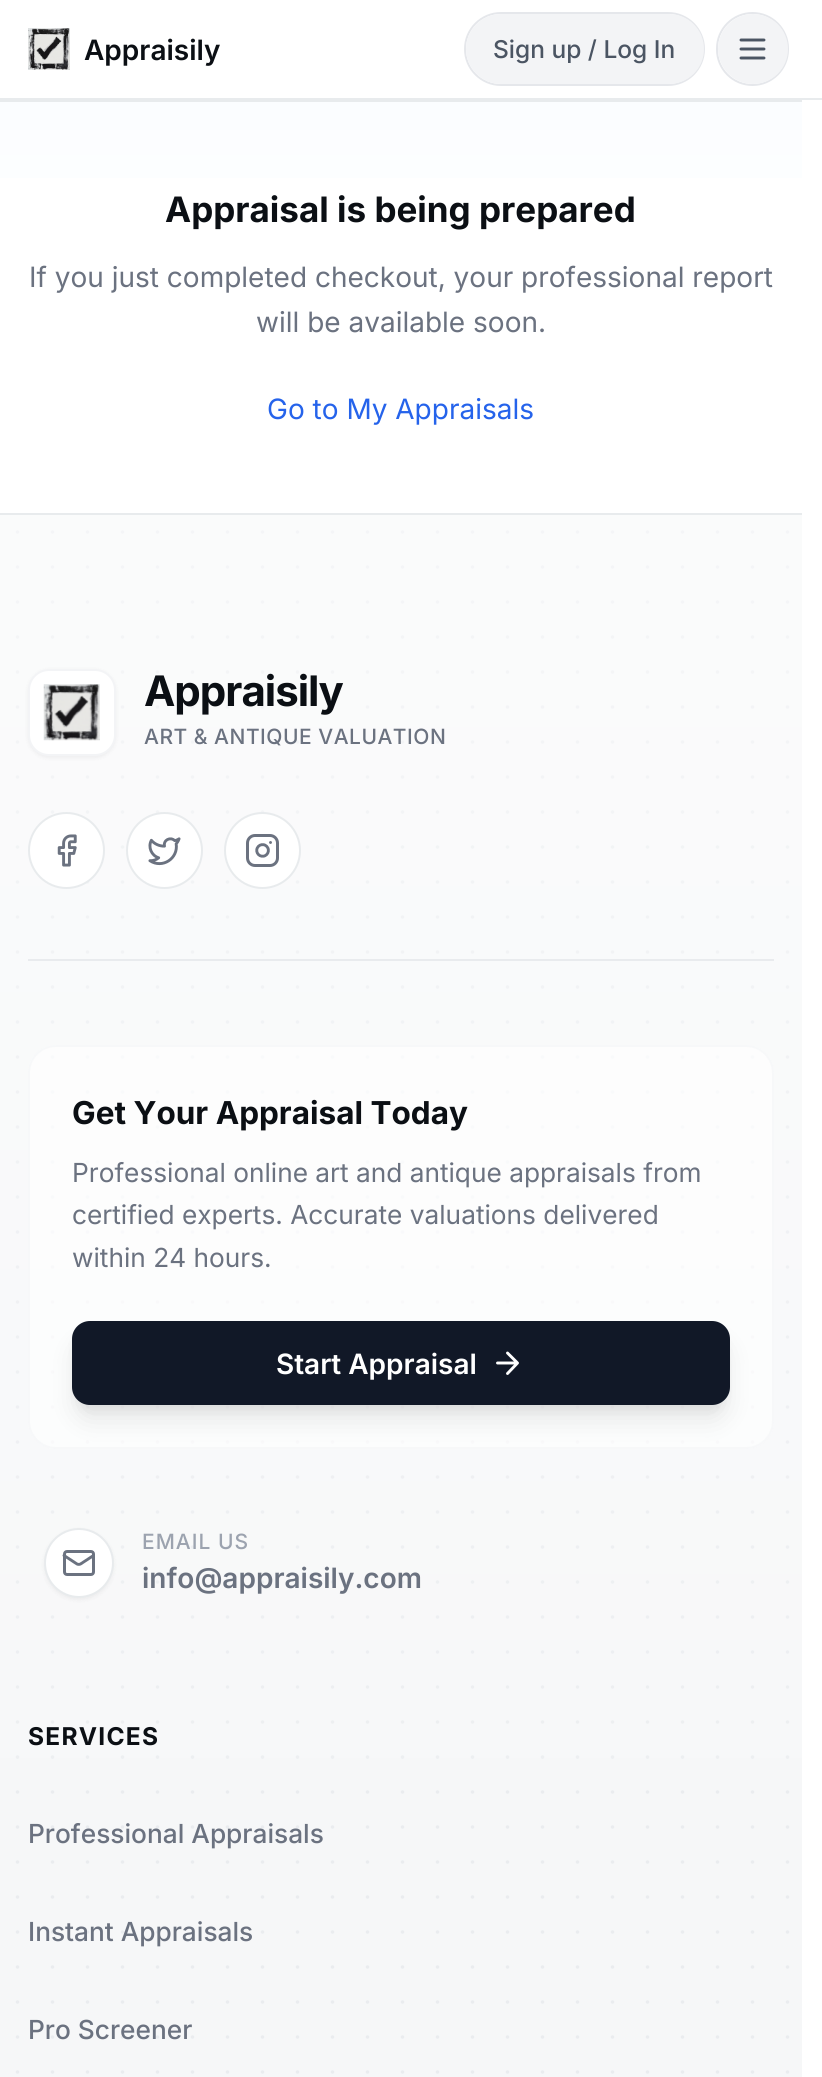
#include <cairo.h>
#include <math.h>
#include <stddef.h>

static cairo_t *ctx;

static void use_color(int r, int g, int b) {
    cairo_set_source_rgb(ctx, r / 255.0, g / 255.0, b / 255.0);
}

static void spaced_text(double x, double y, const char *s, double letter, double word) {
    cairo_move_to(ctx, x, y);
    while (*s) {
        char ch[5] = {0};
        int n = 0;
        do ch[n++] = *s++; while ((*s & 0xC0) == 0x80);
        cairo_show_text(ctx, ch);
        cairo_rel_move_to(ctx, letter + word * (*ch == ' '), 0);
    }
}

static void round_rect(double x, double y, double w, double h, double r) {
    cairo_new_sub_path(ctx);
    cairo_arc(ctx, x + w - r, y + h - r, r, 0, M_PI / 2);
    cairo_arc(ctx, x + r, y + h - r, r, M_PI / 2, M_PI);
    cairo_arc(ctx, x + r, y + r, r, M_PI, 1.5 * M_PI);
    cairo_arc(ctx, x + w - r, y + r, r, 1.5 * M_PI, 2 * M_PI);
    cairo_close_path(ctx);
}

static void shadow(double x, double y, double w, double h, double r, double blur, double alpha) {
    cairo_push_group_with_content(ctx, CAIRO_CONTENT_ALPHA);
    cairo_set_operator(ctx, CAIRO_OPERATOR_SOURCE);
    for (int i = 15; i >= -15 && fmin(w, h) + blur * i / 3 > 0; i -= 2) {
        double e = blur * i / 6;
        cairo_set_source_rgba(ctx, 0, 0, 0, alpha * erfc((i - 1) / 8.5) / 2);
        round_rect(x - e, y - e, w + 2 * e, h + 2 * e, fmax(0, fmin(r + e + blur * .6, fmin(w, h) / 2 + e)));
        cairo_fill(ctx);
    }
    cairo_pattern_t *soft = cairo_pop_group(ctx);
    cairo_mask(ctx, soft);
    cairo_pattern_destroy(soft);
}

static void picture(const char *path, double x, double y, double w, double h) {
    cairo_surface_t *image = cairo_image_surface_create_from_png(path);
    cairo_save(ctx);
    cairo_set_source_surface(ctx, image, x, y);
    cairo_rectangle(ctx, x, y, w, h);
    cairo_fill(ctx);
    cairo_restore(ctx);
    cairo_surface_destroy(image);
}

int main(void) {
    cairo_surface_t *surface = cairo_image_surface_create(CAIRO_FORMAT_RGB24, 822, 2077);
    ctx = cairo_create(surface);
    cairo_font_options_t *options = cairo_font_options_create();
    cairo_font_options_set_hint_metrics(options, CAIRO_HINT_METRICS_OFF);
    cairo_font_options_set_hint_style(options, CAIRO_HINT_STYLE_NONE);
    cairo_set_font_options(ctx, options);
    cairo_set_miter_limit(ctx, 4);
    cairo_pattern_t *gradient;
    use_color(255, 255, 255);
    cairo_paint(ctx);
    use_color(232, 235, 237);
    cairo_rectangle(ctx, 0, 98, 822, 2);
    cairo_fill(ctx);
    picture("img1.png", 28, 28, 42, 42);
    cairo_select_font_face(ctx, "Inter SemiBold", CAIRO_FONT_SLANT_NORMAL, CAIRO_FONT_WEIGHT_NORMAL);
    cairo_set_font_size(ctx, 28);
    use_color(11, 15, 20);
    cairo_move_to(ctx, 84, 60);
    cairo_show_text(ctx, "Appraisily");
    round_rect(465, 13, 239, 72, 36);
    use_color(229, 231, 235);
    cairo_stroke(ctx);
    use_color(243, 244, 246);
    round_rect(466, 14, 238, 70, 35);
    cairo_fill(ctx);
    cairo_select_font_face(ctx, "Inter Medium", CAIRO_FONT_SLANT_NORMAL, CAIRO_FONT_WEIGHT_NORMAL);
    cairo_set_font_size(ctx, 24.5);
    use_color(75, 85, 99);
    cairo_move_to(ctx, 493, 58);
    cairo_show_text(ctx, "Sign up / Log In");
    round_rect(717, 13, 71, 72, 35.5);
    use_color(229, 231, 235);
    cairo_stroke(ctx);
    use_color(243, 244, 246);
    cairo_arc(ctx, 753, 49, 35, 0, 2 * M_PI);
    cairo_fill(ctx);
    cairo_new_path(ctx);
    cairo_move_to(ctx, 741, 49);
    cairo_line_to(ctx, 764, 49);
    cairo_move_to(ctx, 741, 40);
    cairo_line_to(ctx, 764, 40);
    cairo_move_to(ctx, 741, 58);
    cairo_line_to(ctx, 764, 58);
    use_color(75, 85, 99);
    cairo_set_line_width(ctx, 2.9);
    cairo_set_line_cap(ctx, CAIRO_LINE_CAP_ROUND);
    cairo_set_line_join(ctx, CAIRO_LINE_JOIN_ROUND);
    cairo_stroke(ctx);
    gradient = cairo_pattern_create_linear(401, 101, 401, 513);
    cairo_pattern_add_color_stop_rgba(gradient, 0, 0.984, 0.992, 1, 1);
    cairo_pattern_add_color_stop_rgba(gradient, 0.5, 1, 1, 1, 1);
    cairo_pattern_add_color_stop_rgba(gradient, 1, 1, 1, 1, 1);
    cairo_set_source(ctx, gradient);
    cairo_pattern_destroy(gradient);
    cairo_rectangle(ctx, 0, 102, 802, 76);
    cairo_fill(ctx);
    use_color(232, 235, 237);
    cairo_rectangle(ctx, 0, 100, 802, 2);
    cairo_fill(ctx);
    cairo_select_font_face(ctx, "Inter", CAIRO_FONT_SLANT_NORMAL, CAIRO_FONT_WEIGHT_BOLD);
    cairo_set_font_size(ctx, 35);
    use_color(11, 15, 20);
    cairo_move_to(ctx, 165, 222);
    cairo_show_text(ctx, "Appraisal is being prepared");
    cairo_select_font_face(ctx, "Inter", CAIRO_FONT_SLANT_NORMAL, CAIRO_FONT_WEIGHT_NORMAL);
    cairo_set_font_size(ctx, 28);
    use_color(107, 114, 128);
    cairo_move_to(ctx, 29, 287);
    cairo_show_text(ctx, "If you just completed checkout, your professional report");
    cairo_move_to(ctx, 256, 332);
    cairo_show_text(ctx, "will be available soon.");
    use_color(37, 99, 235);
    cairo_move_to(ctx, 267, 419);
    cairo_show_text(ctx, "Go to My Appraisals");
    use_color(246, 247, 248);
    cairo_rectangle(ctx, 0, 515, 802, 1562);
    cairo_fill(ctx);
    use_color(232, 235, 237);
    cairo_rectangle(ctx, 0, 513, 802, 2);
    cairo_fill(ctx);
    cairo_new_path(ctx);
    cairo_move_to(ctx, 17.5, 532);
    cairo_line_to(ctx, 17.5, 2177.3);
    use_color(234, 236, 239);
    cairo_set_line_width(ctx, 3.5);
    cairo_set_line_join(ctx, CAIRO_LINE_JOIN_MITER);
    cairo_set_dash(ctx, (double[]){0, 35}, 2, 0);
    cairo_stroke(ctx);
    cairo_new_path(ctx);
    cairo_move_to(ctx, 52.5, 532);
    cairo_line_to(ctx, 52.5, 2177.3);
    cairo_stroke(ctx);
    cairo_new_path(ctx);
    cairo_move_to(ctx, 87.5, 532);
    cairo_line_to(ctx, 87.5, 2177.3);
    cairo_stroke(ctx);
    cairo_new_path(ctx);
    cairo_move_to(ctx, 122.5, 532);
    cairo_line_to(ctx, 122.5, 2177.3);
    cairo_stroke(ctx);
    cairo_new_path(ctx);
    cairo_move_to(ctx, 157.5, 532);
    cairo_line_to(ctx, 157.5, 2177.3);
    cairo_stroke(ctx);
    cairo_new_path(ctx);
    cairo_move_to(ctx, 192.5, 532);
    cairo_line_to(ctx, 192.5, 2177.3);
    cairo_stroke(ctx);
    cairo_new_path(ctx);
    cairo_move_to(ctx, 227.5, 532);
    cairo_line_to(ctx, 227.5, 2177.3);
    cairo_stroke(ctx);
    cairo_new_path(ctx);
    cairo_move_to(ctx, 262.5, 532);
    cairo_line_to(ctx, 262.5, 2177.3);
    cairo_stroke(ctx);
    cairo_new_path(ctx);
    cairo_move_to(ctx, 297.5, 532);
    cairo_line_to(ctx, 297.5, 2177.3);
    cairo_stroke(ctx);
    cairo_new_path(ctx);
    cairo_move_to(ctx, 332.5, 532);
    cairo_line_to(ctx, 332.5, 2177.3);
    cairo_stroke(ctx);
    cairo_new_path(ctx);
    cairo_move_to(ctx, 367.5, 532);
    cairo_line_to(ctx, 367.5, 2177.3);
    cairo_stroke(ctx);
    cairo_new_path(ctx);
    cairo_move_to(ctx, 402.5, 532);
    cairo_line_to(ctx, 402.5, 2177.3);
    cairo_stroke(ctx);
    cairo_new_path(ctx);
    cairo_move_to(ctx, 437.5, 532);
    cairo_line_to(ctx, 437.5, 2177.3);
    cairo_stroke(ctx);
    cairo_new_path(ctx);
    cairo_move_to(ctx, 472.5, 532);
    cairo_line_to(ctx, 472.5, 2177.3);
    cairo_stroke(ctx);
    cairo_new_path(ctx);
    cairo_move_to(ctx, 507.5, 532);
    cairo_line_to(ctx, 507.5, 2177.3);
    cairo_stroke(ctx);
    cairo_new_path(ctx);
    cairo_move_to(ctx, 542.5, 532);
    cairo_line_to(ctx, 542.5, 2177.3);
    cairo_stroke(ctx);
    cairo_new_path(ctx);
    cairo_move_to(ctx, 577.5, 532);
    cairo_line_to(ctx, 577.5, 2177.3);
    cairo_stroke(ctx);
    cairo_new_path(ctx);
    cairo_move_to(ctx, 612.5, 532);
    cairo_line_to(ctx, 612.5, 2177.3);
    cairo_stroke(ctx);
    cairo_new_path(ctx);
    cairo_move_to(ctx, 647.5, 532);
    cairo_line_to(ctx, 647.5, 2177.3);
    cairo_stroke(ctx);
    cairo_new_path(ctx);
    cairo_move_to(ctx, 682.5, 532);
    cairo_line_to(ctx, 682.5, 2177.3);
    cairo_stroke(ctx);
    cairo_new_path(ctx);
    cairo_move_to(ctx, 717.5, 532);
    cairo_line_to(ctx, 717.5, 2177.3);
    cairo_stroke(ctx);
    cairo_new_path(ctx);
    cairo_move_to(ctx, 752.5, 532);
    cairo_line_to(ctx, 752.5, 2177.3);
    cairo_stroke(ctx);
    cairo_new_path(ctx);
    cairo_move_to(ctx, 787.5, 532);
    cairo_line_to(ctx, 787.5, 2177.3);
    cairo_stroke(ctx);
    gradient = cairo_pattern_create_linear(401, 515, 401, 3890);
    cairo_pattern_add_color_stop_rgba(gradient, 0, 1, 1, 1, 0.5);
    cairo_pattern_add_color_stop_rgba(gradient, 0.5, 1, 1, 1, 0);
    cairo_pattern_add_color_stop_rgba(gradient, 0.5, 0.953, 0.957, 0.965, 0);
    cairo_pattern_add_color_stop_rgba(gradient, 1, 0.953, 0.957, 0.965, 0.5);
    cairo_set_source(ctx, gradient);
    cairo_pattern_destroy(gradient);
    cairo_rectangle(ctx, 0, 515, 802, 1243);
    cairo_fill(ctx);
    cairo_set_source_rgba(ctx, 0.898, 0.906, 0.922, 0.8);
    cairo_rectangle(ctx, 28, 959, 746, 2);
    cairo_fill(ctx);
    use_color(0, 0, 0);
    shadow(28, 670, 88, 88, 21, 2, 0.05);
    use_color(255, 255, 255);
    round_rect(29, 670, 86, 85, 20);
    cairo_fill_preserve(ctx);
    use_color(243, 244, 246);
    cairo_set_line_width(ctx, 2);
    cairo_set_line_cap(ctx, CAIRO_LINE_CAP_BUTT);
    cairo_set_dash(ctx, NULL, 0, 0);
    cairo_stroke(ctx);
    picture("img2.png", 43, 684, 57, 57);
    cairo_select_font_face(ctx, "Inter", CAIRO_FONT_SLANT_NORMAL, CAIRO_FONT_WEIGHT_BOLD);
    cairo_set_font_size(ctx, 42);
    use_color(11, 15, 20);
    spaced_text(144, 706, "Appraisily", -1, 0);
    cairo_select_font_face(ctx, "Inter Medium", CAIRO_FONT_SLANT_NORMAL, CAIRO_FONT_WEIGHT_NORMAL);
    cairo_set_font_size(ctx, 21);
    use_color(107, 114, 128);
    spaced_text(144, 744, "ART & ANTIQUE VALUATION", 0.5, 0);
    use_color(255, 255, 255);
    cairo_new_path(ctx);
    cairo_arc(ctx, 66.5, 850.5, 37.5, 0, 2 * M_PI);
    cairo_fill_preserve(ctx);
    use_color(232, 235, 237);
    cairo_stroke(ctx);
    picture("img3.png", 57, 834, 20, 33);
    use_color(255, 255, 255);
    cairo_arc(ctx, 164.5, 850.5, 37.5, 0, 2 * M_PI);
    cairo_fill_preserve(ctx);
    use_color(232, 235, 237);
    cairo_stroke(ctx);
    picture("img4.png", 148, 837, 33, 29);
    use_color(255, 255, 255);
    cairo_arc(ctx, 262.5, 850.5, 37.5, 0, 2 * M_PI);
    cairo_fill_preserve(ctx);
    use_color(232, 235, 237);
    cairo_stroke(ctx);
    picture("img5.png", 246, 834, 33, 33);
    cairo_set_source_rgba(ctx, 1, 1, 1, 0.6);
    round_rect(28, 1045, 746, 404, 28);
    cairo_fill(ctx);
    round_rect(29, 1046, 744, 402, 27);
    cairo_set_source_rgba(ctx, 0.953, 0.957, 0.965, 0.5);
    cairo_stroke(ctx);
    cairo_select_font_face(ctx, "Inter", CAIRO_FONT_SLANT_NORMAL, CAIRO_FONT_WEIGHT_BOLD);
    cairo_set_font_size(ctx, 31.5);
    use_color(11, 15, 20);
    cairo_move_to(ctx, 72, 1124);
    cairo_show_text(ctx, "Get Your Appraisal Today");
    cairo_select_font_face(ctx, "Inter", CAIRO_FONT_SLANT_NORMAL, CAIRO_FONT_WEIGHT_NORMAL);
    cairo_set_font_size(ctx, 26.25);
    use_color(107, 114, 128);
    cairo_move_to(ctx, 72, 1182);
    cairo_show_text(ctx, "Professional online art and antique appraisals from");
    cairo_move_to(ctx, 72, 1224);
    cairo_show_text(ctx, "certified experts. Accurate valuations delivered");
    cairo_move_to(ctx, 72, 1267);
    cairo_show_text(ctx, "within 24 hours.");
    use_color(0, 0, 0);
    shadow(75, 1332, 651, 77, 14, 5, 0.05);
    shadow(77, 1344, 648, 74, 12, 13, 0.1);
    use_color(17, 24, 39);
    round_rect(72, 1321, 658, 84, 18);
    cairo_fill(ctx);
    cairo_select_font_face(ctx, "Inter SemiBold", CAIRO_FONT_SLANT_NORMAL, CAIRO_FONT_WEIGHT_NORMAL);
    cairo_set_font_size(ctx, 28);
    use_color(255, 255, 255);
    cairo_move_to(ctx, 276, 1374);
    cairo_show_text(ctx, "Start Appraisal");
    cairo_new_path(ctx);
    cairo_move_to(ctx, 497.5, 1363);
    cairo_line_to(ctx, 517.5, 1363);
    cairo_move_to(ctx, 507.5, 1353);
    cairo_line_to(ctx, 517.5, 1363);
    cairo_line_to(ctx, 507.5, 1373.5);
    cairo_set_line_width(ctx, 2.9);
    cairo_set_line_cap(ctx, CAIRO_LINE_CAP_ROUND);
    cairo_set_line_join(ctx, CAIRO_LINE_JOIN_ROUND);
    cairo_stroke(ctx);
    use_color(0, 0, 0);
    shadow(44, 1530, 70, 70, 35, 2, 0.05);
    use_color(255, 255, 255);
    cairo_arc(ctx, 79, 1563, 34, 0, 2 * M_PI);
    cairo_fill_preserve(ctx);
    use_color(232, 235, 237);
    cairo_set_line_width(ctx, 2);
    cairo_set_line_cap(ctx, CAIRO_LINE_CAP_BUTT);
    cairo_set_line_join(ctx, CAIRO_LINE_JOIN_MITER);
    cairo_stroke(ctx);
    round_rect(64.5, 1551.5, 29, 23, 2.5);
    use_color(107, 114, 128);
    cairo_set_line_width(ctx, 3);
    cairo_stroke(ctx);
    cairo_new_path(ctx);
    cairo_move_to(ctx, 93.5, 1555.5);
    cairo_line_to(ctx, 80.5, 1564);
    cairo_curve_to(ctx, 79.5, 1564.5, 78, 1564.5, 77, 1564);
    cairo_line_to(ctx, 64, 1555.5);
    cairo_set_line_width(ctx, 2.9);
    cairo_set_line_cap(ctx, CAIRO_LINE_CAP_ROUND);
    cairo_set_line_join(ctx, CAIRO_LINE_JOIN_ROUND);
    cairo_stroke(ctx);
    cairo_select_font_face(ctx, "Inter Medium", CAIRO_FONT_SLANT_NORMAL, CAIRO_FONT_WEIGHT_NORMAL);
    cairo_set_font_size(ctx, 21);
    use_color(156, 163, 175);
    spaced_text(142, 1549, "EMAIL US", 1, 0);
    cairo_select_font_face(ctx, "Inter SemiBold", CAIRO_FONT_SLANT_NORMAL, CAIRO_FONT_WEIGHT_NORMAL);
    cairo_set_font_size(ctx, 28);
    use_color(107, 114, 128);
    cairo_move_to(ctx, 142, 1588);
    cairo_show_text(ctx, "info@appraisily.com");
    cairo_select_font_face(ctx, "Inter", CAIRO_FONT_SLANT_NORMAL, CAIRO_FONT_WEIGHT_BOLD);
    cairo_set_font_size(ctx, 24.5);
    use_color(11, 15, 20);
    spaced_text(28, 1745, "SERVICES", 1.25, 0);
    cairo_select_font_face(ctx, "Inter Medium", CAIRO_FONT_SLANT_NORMAL, CAIRO_FONT_WEIGHT_NORMAL);
    cairo_set_font_size(ctx, 26.25);
    use_color(107, 114, 128);
    cairo_move_to(ctx, 28, 1843);
    cairo_show_text(ctx, "Professional Appraisals");
    cairo_move_to(ctx, 28, 1941);
    cairo_show_text(ctx, "Instant Appraisals");
    cairo_move_to(ctx, 28, 2039);
    cairo_show_text(ctx, "Pro Screener");
    cairo_surface_write_to_png(surface, "result.png");
    cairo_font_options_destroy(options);
    cairo_destroy(ctx);
    cairo_surface_destroy(surface);
    return 0;
}
